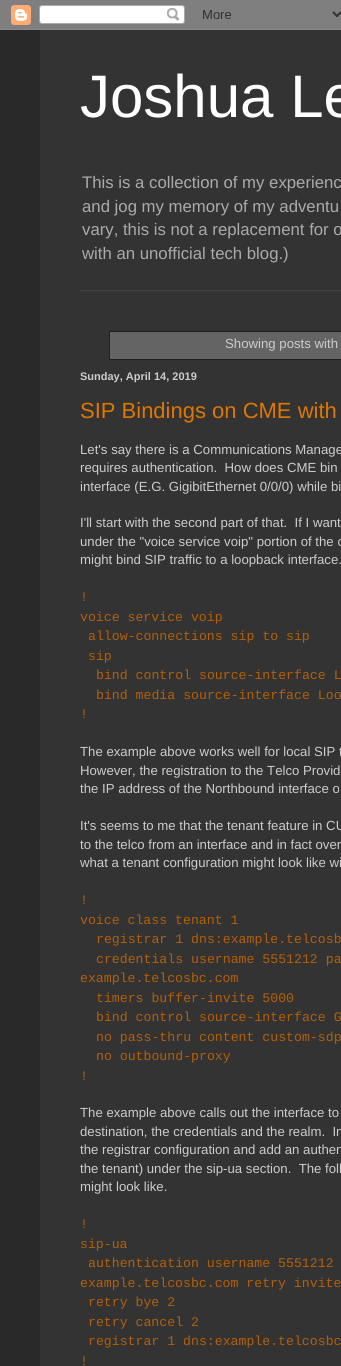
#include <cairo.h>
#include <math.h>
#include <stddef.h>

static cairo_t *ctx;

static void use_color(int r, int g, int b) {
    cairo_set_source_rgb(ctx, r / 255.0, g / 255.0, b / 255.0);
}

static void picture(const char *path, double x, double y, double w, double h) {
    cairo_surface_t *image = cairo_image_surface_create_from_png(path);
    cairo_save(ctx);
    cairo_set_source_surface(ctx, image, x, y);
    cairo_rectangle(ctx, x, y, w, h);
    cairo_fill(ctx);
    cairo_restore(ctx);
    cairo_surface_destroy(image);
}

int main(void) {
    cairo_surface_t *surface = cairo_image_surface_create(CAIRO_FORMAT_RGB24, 341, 1366);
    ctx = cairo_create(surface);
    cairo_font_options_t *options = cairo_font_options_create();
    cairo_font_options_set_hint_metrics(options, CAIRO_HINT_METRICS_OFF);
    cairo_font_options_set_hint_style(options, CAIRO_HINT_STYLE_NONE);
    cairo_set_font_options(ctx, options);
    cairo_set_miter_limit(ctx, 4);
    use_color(41, 41, 41);
    cairo_paint(ctx);
    picture("img1.png", 0, 0, 341, 30);
    use_color(51, 51, 51);
    cairo_rectangle(ctx, 40, 30, 301, 1336);
    cairo_fill(ctx);
    cairo_select_font_face(ctx, "Liberation Sans", CAIRO_FONT_SLANT_NORMAL, CAIRO_FONT_WEIGHT_NORMAL);
    cairo_set_font_size(ctx, 60);
    use_color(255, 255, 255);
    cairo_move_to(ctx, 80, 117);
    cairo_show_text(ctx, "Joshua Le");
    cairo_set_font_size(ctx, 16.75);
    use_color(170, 170, 170);
    cairo_move_to(ctx, 82, 188);
    cairo_show_text(ctx, "This is a collection of my experienc");
    cairo_move_to(ctx, 82, 212);
    cairo_show_text(ctx, "and jog my memory of my adventu");
    cairo_move_to(ctx, 82, 235);
    cairo_show_text(ctx, "vary, this is not a replacement for o");
    cairo_move_to(ctx, 82, 259);
    cairo_show_text(ctx, "with an unofficial tech blog.)");
    use_color(64, 64, 64);
    cairo_rectangle(ctx, 80, 290, 261, 1);
    cairo_fill(ctx);
    cairo_rectangle(ctx, 109.5, 331.5, 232, 28);
    use_color(31, 31, 31);
    cairo_set_line_width(ctx, 1);
    cairo_stroke(ctx);
    use_color(100, 100, 100);
    cairo_rectangle(ctx, 110, 332, 231, 27);
    cairo_fill(ctx);
    cairo_set_font_size(ctx, 13.2);
    use_color(204, 204, 204);
    cairo_move_to(ctx, 225, 348);
    cairo_show_text(ctx, "Showing posts with");
    cairo_select_font_face(ctx, "Liberation Sans", CAIRO_FONT_SLANT_NORMAL, CAIRO_FONT_WEIGHT_BOLD);
    cairo_set_font_size(ctx, 11);
    cairo_move_to(ctx, 80, 380);
    cairo_show_text(ctx, "Sunday, April 14, 2019");
    cairo_select_font_face(ctx, "Liberation Sans", CAIRO_FONT_SLANT_NORMAL, CAIRO_FONT_WEIGHT_NORMAL);
    cairo_set_font_size(ctx, 22);
    use_color(221, 119, 0);
    cairo_move_to(ctx, 80, 418);
    cairo_show_text(ctx, "SIP Bindings on CME with");
    cairo_set_font_size(ctx, 13.2);
    use_color(204, 204, 204);
    cairo_move_to(ctx, 80, 454);
    cairo_show_text(ctx, "Let's say there is a Communications Manage");
    cairo_move_to(ctx, 80, 472);
    cairo_show_text(ctx, "requires authentication.  How does CME bin");
    cairo_move_to(ctx, 80, 491);
    cairo_show_text(ctx, "interface (E.G. GigibitEthernet 0/0/0) while bi");
    cairo_move_to(ctx, 80, 527);
    cairo_show_text(ctx, "I'll start with the second part of that.  If I want");
    cairo_move_to(ctx, 80, 546);
    cairo_show_text(ctx, "under the \"voice service voip\" portion of the c");
    cairo_move_to(ctx, 80, 564);
    cairo_show_text(ctx, "might bind SIP traffic to a loopback interface.");
    cairo_select_font_face(ctx, "Liberation Mono", CAIRO_FONT_SLANT_NORMAL, CAIRO_FONT_WEIGHT_NORMAL);
    use_color(180, 95, 6);
    cairo_move_to(ctx, 80, 601);
    cairo_show_text(ctx, "!");
    cairo_move_to(ctx, 80, 621);
    cairo_show_text(ctx, "voice service voip");
    cairo_move_to(ctx, 88, 640);
    cairo_show_text(ctx, "allow-connections sip to sip");
    cairo_move_to(ctx, 88, 660);
    cairo_show_text(ctx, "sip");
    cairo_move_to(ctx, 96, 679);
    cairo_show_text(ctx, "bind control source-interface L");
    cairo_move_to(ctx, 96, 699);
    cairo_show_text(ctx, "bind media source-interface Loo");
    cairo_move_to(ctx, 80, 718);
    cairo_show_text(ctx, "!");
    cairo_select_font_face(ctx, "Liberation Sans", CAIRO_FONT_SLANT_NORMAL, CAIRO_FONT_WEIGHT_NORMAL);
    use_color(204, 204, 204);
    cairo_move_to(ctx, 80, 756);
    cairo_show_text(ctx, "The example above works well for local SIP t");
    cairo_move_to(ctx, 80, 775);
    cairo_show_text(ctx, "However, the registration to the Telco Provid");
    cairo_move_to(ctx, 80, 793);
    cairo_show_text(ctx, "the IP address of the Northbound interface o");
    cairo_move_to(ctx, 80, 830);
    cairo_show_text(ctx, "It's seems to me that the tenant feature in CU");
    cairo_move_to(ctx, 80, 849);
    cairo_show_text(ctx, "to the telco from an interface and in fact over");
    cairo_move_to(ctx, 80, 867);
    cairo_show_text(ctx, "what a tenant configuration might look like wi");
    cairo_select_font_face(ctx, "Liberation Mono", CAIRO_FONT_SLANT_NORMAL, CAIRO_FONT_WEIGHT_NORMAL);
    use_color(180, 95, 6);
    cairo_move_to(ctx, 80, 904);
    cairo_show_text(ctx, "!");
    cairo_move_to(ctx, 80, 924);
    cairo_show_text(ctx, "voice class tenant 1");
    cairo_move_to(ctx, 96, 943);
    cairo_show_text(ctx, "registrar 1 dns:example.telcosb");
    cairo_move_to(ctx, 96, 963);
    cairo_show_text(ctx, "credentials username 5551212 pa");
    cairo_move_to(ctx, 80, 982);
    cairo_show_text(ctx, "example.telcosbc.com");
    cairo_move_to(ctx, 96, 1002);
    cairo_show_text(ctx, "timers buffer-invite 5000");
    cairo_move_to(ctx, 96, 1021);
    cairo_show_text(ctx, "bind control source-interface G");
    cairo_move_to(ctx, 96, 1041);
    cairo_show_text(ctx, "no pass-thru content custom-sdp");
    cairo_move_to(ctx, 96, 1060);
    cairo_show_text(ctx, "no outbound-proxy");
    cairo_move_to(ctx, 80, 1080);
    cairo_show_text(ctx, "!");
    cairo_select_font_face(ctx, "Liberation Sans", CAIRO_FONT_SLANT_NORMAL, CAIRO_FONT_WEIGHT_NORMAL);
    use_color(204, 204, 204);
    cairo_move_to(ctx, 80, 1117);
    cairo_show_text(ctx, "The example above calls out the interface to");
    cairo_move_to(ctx, 80, 1136);
    cairo_show_text(ctx, "destination, the credentials and the realm.  In");
    cairo_move_to(ctx, 80, 1154);
    cairo_show_text(ctx, "the registrar configuration and add an authen");
    cairo_move_to(ctx, 80, 1173);
    cairo_show_text(ctx, "the tenant) under the sip-ua section.  The foll");
    cairo_move_to(ctx, 80, 1191);
    cairo_show_text(ctx, "might look like.");
    cairo_select_font_face(ctx, "Liberation Mono", CAIRO_FONT_SLANT_NORMAL, CAIRO_FONT_WEIGHT_NORMAL);
    use_color(180, 95, 6);
    cairo_move_to(ctx, 80, 1228);
    cairo_show_text(ctx, "!");
    cairo_move_to(ctx, 80, 1248);
    cairo_show_text(ctx, "sip-ua");
    cairo_move_to(ctx, 88, 1267);
    cairo_show_text(ctx, "authentication username 5551212");
    cairo_move_to(ctx, 80, 1287);
    cairo_show_text(ctx, "example.telcosbc.com retry invite");
    cairo_move_to(ctx, 88, 1306);
    cairo_show_text(ctx, "retry bye 2");
    cairo_move_to(ctx, 88, 1326);
    cairo_show_text(ctx, "retry cancel 2");
    cairo_move_to(ctx, 88, 1345);
    cairo_show_text(ctx, "registrar 1 dns:example.telcosbc");
    cairo_move_to(ctx, 80, 1365);
    cairo_show_text(ctx, "!");
    cairo_surface_write_to_png(surface, "result.png");
    cairo_font_options_destroy(options);
    cairo_destroy(ctx);
    cairo_surface_destroy(surface);
    return 0;
}
